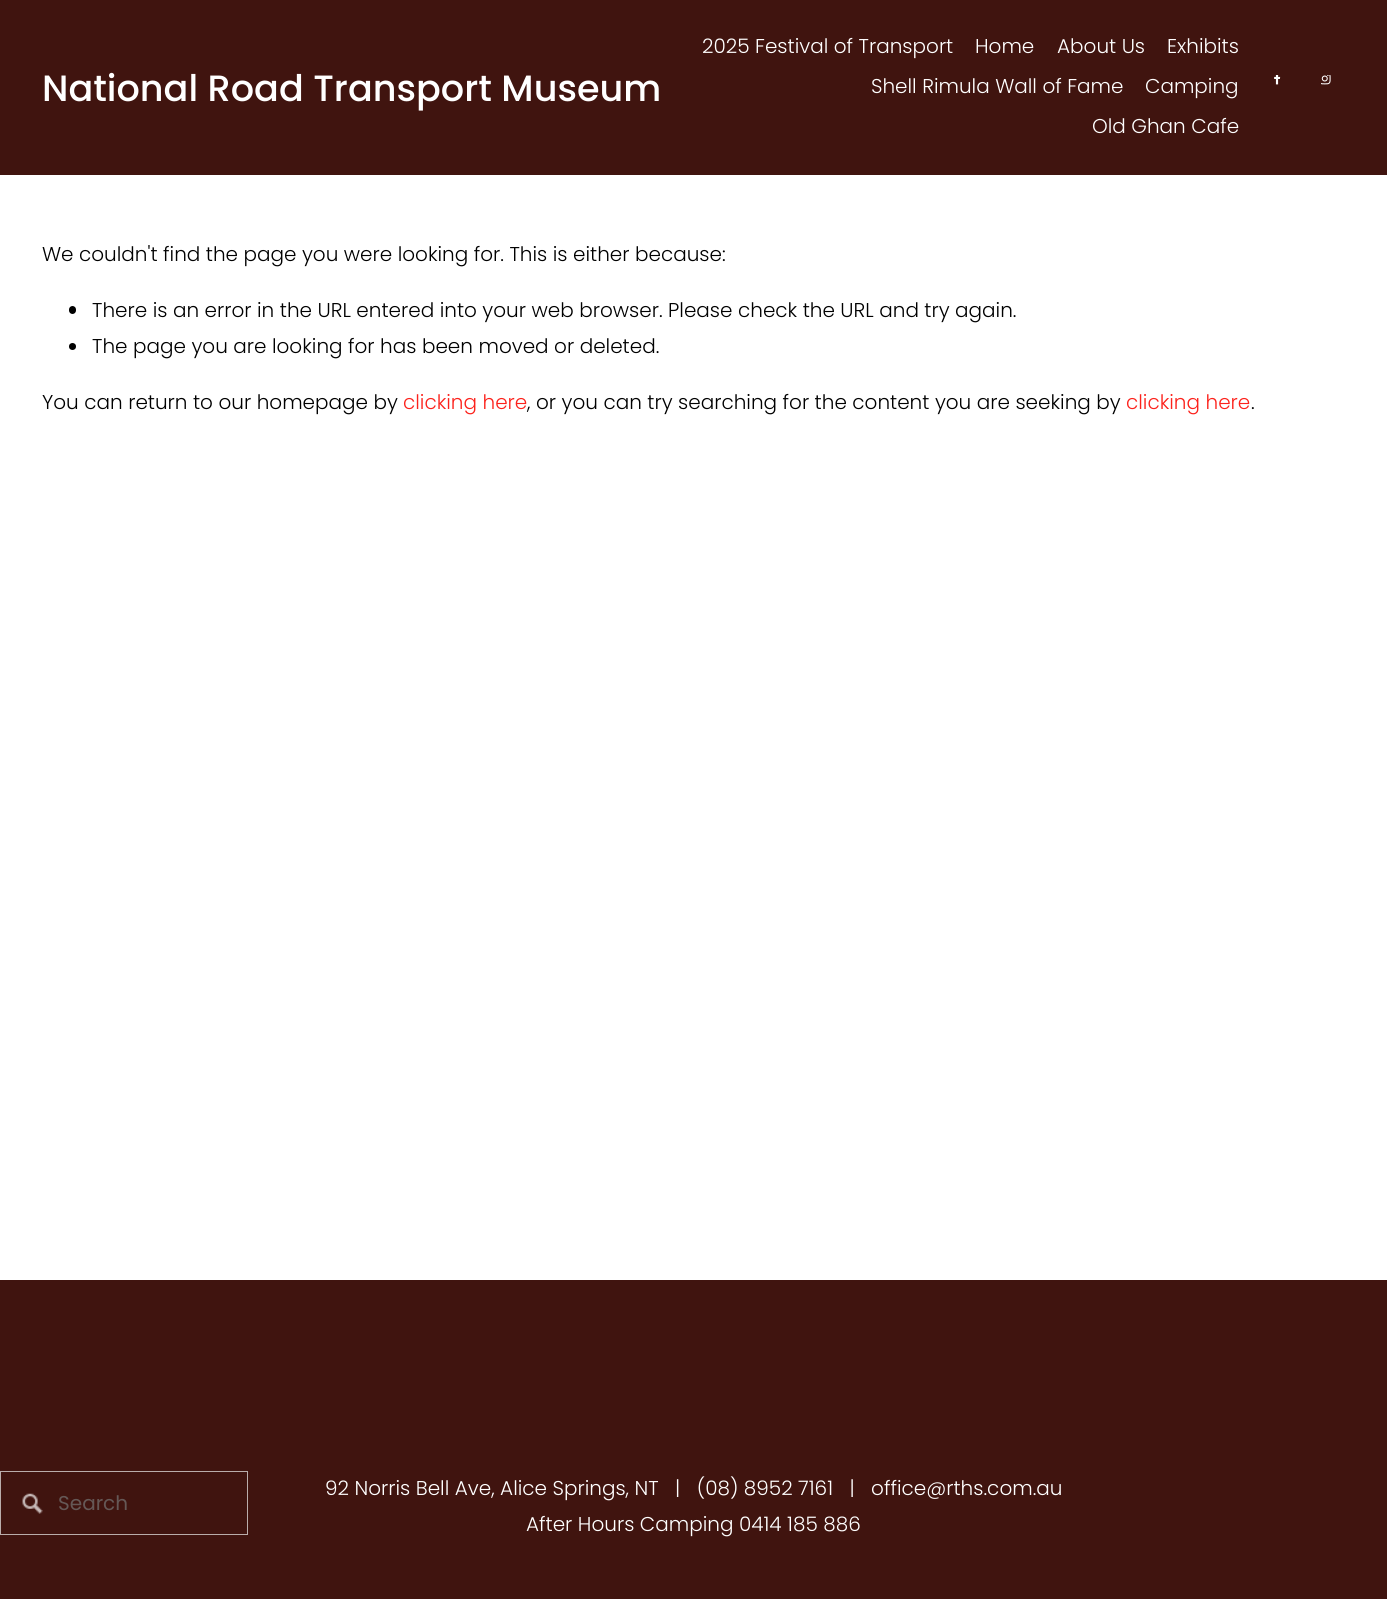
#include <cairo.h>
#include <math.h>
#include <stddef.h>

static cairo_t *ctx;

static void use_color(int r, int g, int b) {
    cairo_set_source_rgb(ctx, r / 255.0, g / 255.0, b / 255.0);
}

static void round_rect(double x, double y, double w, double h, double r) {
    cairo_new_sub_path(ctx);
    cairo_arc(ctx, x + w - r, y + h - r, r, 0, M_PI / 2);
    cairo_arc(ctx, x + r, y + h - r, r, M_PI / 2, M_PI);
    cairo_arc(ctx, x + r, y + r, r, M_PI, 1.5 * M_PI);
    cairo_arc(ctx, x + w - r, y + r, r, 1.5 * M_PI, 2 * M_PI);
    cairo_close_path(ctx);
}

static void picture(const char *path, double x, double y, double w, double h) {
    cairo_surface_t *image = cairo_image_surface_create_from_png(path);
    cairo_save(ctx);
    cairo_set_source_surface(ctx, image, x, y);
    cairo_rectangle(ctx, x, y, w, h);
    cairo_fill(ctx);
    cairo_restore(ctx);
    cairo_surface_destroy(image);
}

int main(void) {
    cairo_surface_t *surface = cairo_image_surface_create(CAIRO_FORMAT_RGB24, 1387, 1599);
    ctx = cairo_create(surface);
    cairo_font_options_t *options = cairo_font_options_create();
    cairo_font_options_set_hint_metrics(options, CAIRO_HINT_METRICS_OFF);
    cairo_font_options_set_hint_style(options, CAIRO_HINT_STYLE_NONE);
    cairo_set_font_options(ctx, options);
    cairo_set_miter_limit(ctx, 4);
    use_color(255, 255, 255);
    cairo_paint(ctx);
    use_color(64, 20, 15);
    cairo_rectangle(ctx, 0, 0, 1387, 175);
    cairo_fill(ctx);
    cairo_select_font_face(ctx, "Poppins Medium", CAIRO_FONT_SLANT_NORMAL, CAIRO_FONT_WEIGHT_NORMAL);
    cairo_set_font_size(ctx, 36.6);
    use_color(255, 255, 255);
    cairo_move_to(ctx, 42, 101);
    cairo_show_text(ctx, "National Road Transport Museum");
    cairo_select_font_face(ctx, "Poppins Light", CAIRO_FONT_SLANT_NORMAL, CAIRO_FONT_WEIGHT_NORMAL);
    cairo_set_font_size(ctx, 20);
    cairo_move_to(ctx, 702, 53);
    cairo_show_text(ctx, "2025 Festival of Transport");
    cairo_move_to(ctx, 975, 53);
    cairo_show_text(ctx, "Home");
    cairo_move_to(ctx, 1057, 53);
    cairo_show_text(ctx, "About Us");
    cairo_move_to(ctx, 1167, 53);
    cairo_show_text(ctx, "Exhibits");
    cairo_move_to(ctx, 871, 93);
    cairo_show_text(ctx, "Shell Rimula Wall of Fame");
    cairo_move_to(ctx, 1145, 93);
    cairo_show_text(ctx, "Camping");
    cairo_move_to(ctx, 1092, 133);
    cairo_show_text(ctx, "Old Ghan Cafe");
    picture("img1.png", 1274, 75, 7, 10);
    picture("img2.png", 1321, 75, 10, 10);
    use_color(0, 0, 0);
    cairo_move_to(ctx, 42, 261);
    cairo_show_text(ctx, "We couldn't find the page you were looking for. This is either because:");
    round_rect(69, 306, 7, 8, 3.5);
    cairo_fill(ctx);
    cairo_move_to(ctx, 92, 317);
    cairo_show_text(ctx, "There is an error in the URL entered into your web browser. Please check the URL and try again.");
    cairo_new_path(ctx);
    cairo_arc(ctx, 72.5, 346.5, 3.5, 0, 2 * M_PI);
    cairo_fill(ctx);
    cairo_move_to(ctx, 92, 353);
    cairo_show_text(ctx, "The page you are looking for has been moved or deleted.");
    cairo_move_to(ctx, 42, 409);
    cairo_show_text(ctx, "You can return to our homepage by");
    use_color(252, 34, 28);
    cairo_move_to(ctx, 403, 409);
    cairo_show_text(ctx, "clicking here");
    use_color(0, 0, 0);
    cairo_move_to(ctx, 527, 409);
    cairo_show_text(ctx, ", or you can try searching for the content you are seeking by");
    use_color(252, 34, 28);
    cairo_move_to(ctx, 1126, 409);
    cairo_show_text(ctx, "clicking here");
    use_color(0, 0, 0);
    cairo_move_to(ctx, 1251, 409);
    cairo_show_text(ctx, ".");
    use_color(64, 20, 15);
    cairo_rectangle(ctx, 0, 1280, 1387, 319);
    cairo_fill(ctx);
    picture("img3.png", 22, 1493, 21, 21);
    cairo_rectangle(ctx, 0.5, 1471.5, 247, 63);
    use_color(186, 173, 171);
    cairo_set_line_width(ctx, 1);
    cairo_stroke(ctx);
    cairo_select_font_face(ctx, "Poppins", CAIRO_FONT_SLANT_NORMAL, CAIRO_FONT_WEIGHT_NORMAL);
    use_color(101, 88, 86);
    cairo_move_to(ctx, 58, 1510);
    cairo_show_text(ctx, "Search");
    cairo_select_font_face(ctx, "Poppins Light", CAIRO_FONT_SLANT_NORMAL, CAIRO_FONT_WEIGHT_NORMAL);
    use_color(255, 255, 255);
    cairo_move_to(ctx, 325, 1495);
    cairo_show_text(ctx, "92 Norris Bell Ave, Alice Springs, NT   |   (08) 8952 7161   |   office@rths.com.au");
    cairo_move_to(ctx, 526, 1531);
    cairo_show_text(ctx, "After Hours Camping 0414 185 886");
    cairo_surface_write_to_png(surface, "result.png");
    cairo_font_options_destroy(options);
    cairo_destroy(ctx);
    cairo_surface_destroy(surface);
    return 0;
}
